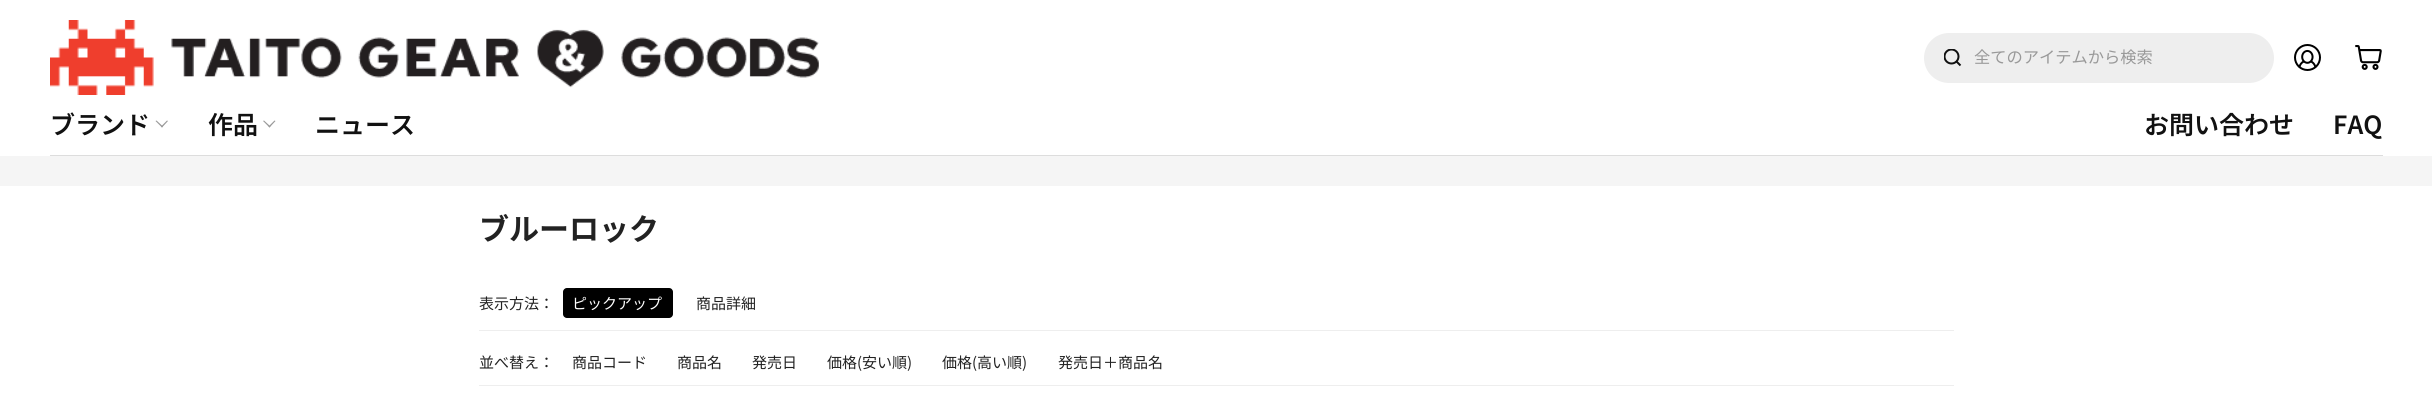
#include <cairo.h>
#include <math.h>
#include <stddef.h>

static cairo_t *ctx;

static void use_color(int r, int g, int b) {
    cairo_set_source_rgb(ctx, r / 255.0, g / 255.0, b / 255.0);
}

static void round_rect(double x, double y, double w, double h, double r) {
    cairo_new_sub_path(ctx);
    cairo_arc(ctx, x + w - r, y + h - r, r, 0, M_PI / 2);
    cairo_arc(ctx, x + r, y + h - r, r, M_PI / 2, M_PI);
    cairo_arc(ctx, x + r, y + r, r, M_PI, 1.5 * M_PI);
    cairo_arc(ctx, x + w - r, y + r, r, 1.5 * M_PI, 2 * M_PI);
    cairo_close_path(ctx);
}

static void picture(const char *path, double x, double y, double w, double h) {
    cairo_surface_t *image = cairo_image_surface_create_from_png(path);
    cairo_save(ctx);
    cairo_set_source_surface(ctx, image, x, y);
    cairo_rectangle(ctx, x, y, w, h);
    cairo_fill(ctx);
    cairo_restore(ctx);
    cairo_surface_destroy(image);
}

int main(void) {
    cairo_surface_t *surface = cairo_image_surface_create(CAIRO_FORMAT_RGB24, 2432, 403);
    ctx = cairo_create(surface);
    cairo_font_options_t *options = cairo_font_options_create();
    cairo_font_options_set_hint_metrics(options, CAIRO_HINT_METRICS_OFF);
    cairo_font_options_set_hint_style(options, CAIRO_HINT_STYLE_NONE);
    cairo_set_font_options(ctx, options);
    cairo_set_miter_limit(ctx, 4);
    use_color(255, 255, 255);
    cairo_paint(ctx);
    picture("img1.png", 50, 20, 769, 75);
    use_color(238, 238, 238);
    round_rect(1924, 33, 350, 50, 25);
    cairo_fill(ctx);
    cairo_save(ctx);
    cairo_rectangle(ctx, 1944, 49, 17, 17);
    cairo_clip(ctx);
    cairo_arc(ctx, 1951.5, 56.5, 7, 0, 2 * M_PI);
    use_color(17, 17, 17);
    cairo_stroke(ctx);
    cairo_restore(ctx);
    cairo_new_path(ctx);
    cairo_move_to(ctx, 1960.5, 65.5);
    cairo_line_to(ctx, 1956, 61);
    use_color(17, 17, 17);
    cairo_set_line_join(ctx, CAIRO_LINE_JOIN_ROUND);
    cairo_stroke(ctx);
    cairo_select_font_face(ctx, "Noto Sans JP", CAIRO_FONT_SLANT_NORMAL, CAIRO_FONT_WEIGHT_NORMAL);
    cairo_set_font_size(ctx, 16.25);
    use_color(153, 153, 153);
    cairo_move_to(ctx, 1974, 63);
    cairo_show_text(ctx, "全てのアイテムから検索");
    picture("img2.png", 2294, 44, 27, 27);
    picture("img3.png", 2355, 45, 27, 25);
    use_color(221, 221, 221);
    cairo_rectangle(ctx, 50, 155, 2333, 1);
    cairo_fill(ctx);
    cairo_select_font_face(ctx, "Noto Sans JP SemiBold", CAIRO_FONT_SLANT_NORMAL, CAIRO_FONT_WEIGHT_NORMAL);
    cairo_set_font_size(ctx, 25);
    use_color(17, 17, 17);
    cairo_move_to(ctx, 50, 134);
    cairo_show_text(ctx, "ブランド");
    use_color(153, 153, 153);
    cairo_new_path(ctx);
    cairo_move_to(ctx, 167, 120.5);
    cairo_line_to(ctx, 168, 121);
    cairo_line_to(ctx, 162, 127.5);
    cairo_line_to(ctx, 161, 126.5);
    cairo_close_path(ctx);
    cairo_fill(ctx);
    cairo_new_path(ctx);
    cairo_move_to(ctx, 156.5, 120.5);
    cairo_line_to(ctx, 163, 126.5);
    cairo_line_to(ctx, 162, 127.5);
    cairo_line_to(ctx, 155.5, 121);
    cairo_close_path(ctx);
    cairo_fill(ctx);
    use_color(17, 17, 17);
    cairo_move_to(ctx, 208, 134);
    cairo_show_text(ctx, "作品");
    use_color(153, 153, 153);
    cairo_new_path(ctx);
    cairo_move_to(ctx, 274.5, 120.5);
    cairo_line_to(ctx, 275.5, 121);
    cairo_line_to(ctx, 269.5, 127.5);
    cairo_line_to(ctx, 268.5, 126.5);
    cairo_close_path(ctx);
    cairo_fill(ctx);
    cairo_new_path(ctx);
    cairo_move_to(ctx, 264, 120.5);
    cairo_line_to(ctx, 270.5, 126.5);
    cairo_line_to(ctx, 269.5, 127.5);
    cairo_line_to(ctx, 263, 121);
    cairo_close_path(ctx);
    cairo_fill(ctx);
    use_color(17, 17, 17);
    cairo_move_to(ctx, 315, 134);
    cairo_show_text(ctx, "ニュース");
    cairo_move_to(ctx, 2144, 134);
    cairo_show_text(ctx, "お問い合わせ");
    cairo_move_to(ctx, 2333, 134);
    cairo_show_text(ctx, "FAQ");
    use_color(245, 245, 245);
    cairo_rectangle(ctx, 0, 156, 2432, 30);
    cairo_fill(ctx);
    cairo_select_font_face(ctx, "Noto Sans JP", CAIRO_FONT_SLANT_NORMAL, CAIRO_FONT_WEIGHT_BOLD);
    cairo_set_font_size(ctx, 30);
    use_color(34, 34, 34);
    cairo_move_to(ctx, 479, 240);
    cairo_show_text(ctx, "ブルーロック");
    use_color(238, 238, 238);
    cairo_rectangle(ctx, 479, 330, 1475, 1);
    cairo_fill(ctx);
    cairo_select_font_face(ctx, "Noto Sans JP", CAIRO_FONT_SLANT_NORMAL, CAIRO_FONT_WEIGHT_NORMAL);
    cairo_set_font_size(ctx, 15);
    use_color(34, 34, 34);
    cairo_move_to(ctx, 479, 309);
    cairo_show_text(ctx, "表示方法：");
    use_color(0, 0, 0);
    round_rect(563, 288, 110, 30, 4);
    cairo_fill(ctx);
    use_color(255, 255, 255);
    cairo_move_to(ctx, 572, 309);
    cairo_show_text(ctx, "ピックアップ");
    use_color(34, 34, 34);
    cairo_move_to(ctx, 696, 309);
    cairo_show_text(ctx, "商品詳細");
    use_color(238, 238, 238);
    cairo_rectangle(ctx, 479, 385, 1475, 1);
    cairo_fill(ctx);
    use_color(34, 34, 34);
    cairo_move_to(ctx, 479, 368);
    cairo_show_text(ctx, "並べ替え：");
    cairo_move_to(ctx, 572, 368);
    cairo_show_text(ctx, "商品コード");
    cairo_move_to(ctx, 677, 368);
    cairo_show_text(ctx, "商品名");
    cairo_move_to(ctx, 752, 368);
    cairo_show_text(ctx, "発売日");
    cairo_move_to(ctx, 827, 368);
    cairo_show_text(ctx, "価格(安い順)");
    cairo_move_to(ctx, 942, 368);
    cairo_show_text(ctx, "価格(高い順)");
    cairo_move_to(ctx, 1058, 368);
    cairo_show_text(ctx, "発売日＋商品名");
    cairo_surface_write_to_png(surface, "result.png");
    cairo_font_options_destroy(options);
    cairo_destroy(ctx);
    cairo_surface_destroy(surface);
    return 0;
}
